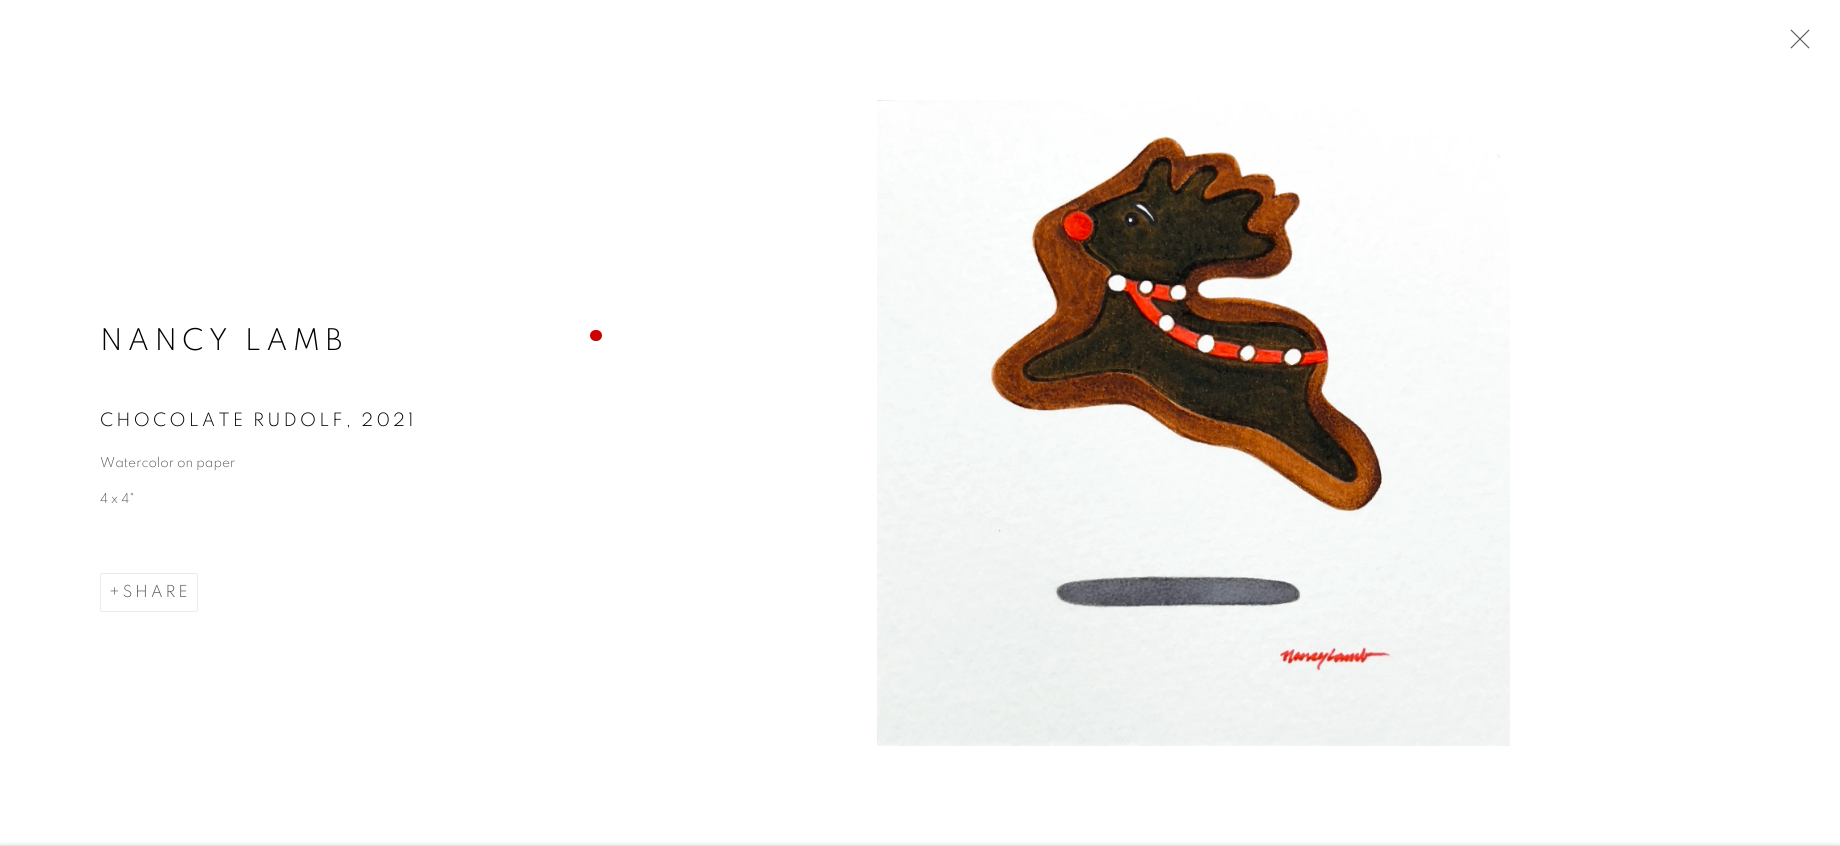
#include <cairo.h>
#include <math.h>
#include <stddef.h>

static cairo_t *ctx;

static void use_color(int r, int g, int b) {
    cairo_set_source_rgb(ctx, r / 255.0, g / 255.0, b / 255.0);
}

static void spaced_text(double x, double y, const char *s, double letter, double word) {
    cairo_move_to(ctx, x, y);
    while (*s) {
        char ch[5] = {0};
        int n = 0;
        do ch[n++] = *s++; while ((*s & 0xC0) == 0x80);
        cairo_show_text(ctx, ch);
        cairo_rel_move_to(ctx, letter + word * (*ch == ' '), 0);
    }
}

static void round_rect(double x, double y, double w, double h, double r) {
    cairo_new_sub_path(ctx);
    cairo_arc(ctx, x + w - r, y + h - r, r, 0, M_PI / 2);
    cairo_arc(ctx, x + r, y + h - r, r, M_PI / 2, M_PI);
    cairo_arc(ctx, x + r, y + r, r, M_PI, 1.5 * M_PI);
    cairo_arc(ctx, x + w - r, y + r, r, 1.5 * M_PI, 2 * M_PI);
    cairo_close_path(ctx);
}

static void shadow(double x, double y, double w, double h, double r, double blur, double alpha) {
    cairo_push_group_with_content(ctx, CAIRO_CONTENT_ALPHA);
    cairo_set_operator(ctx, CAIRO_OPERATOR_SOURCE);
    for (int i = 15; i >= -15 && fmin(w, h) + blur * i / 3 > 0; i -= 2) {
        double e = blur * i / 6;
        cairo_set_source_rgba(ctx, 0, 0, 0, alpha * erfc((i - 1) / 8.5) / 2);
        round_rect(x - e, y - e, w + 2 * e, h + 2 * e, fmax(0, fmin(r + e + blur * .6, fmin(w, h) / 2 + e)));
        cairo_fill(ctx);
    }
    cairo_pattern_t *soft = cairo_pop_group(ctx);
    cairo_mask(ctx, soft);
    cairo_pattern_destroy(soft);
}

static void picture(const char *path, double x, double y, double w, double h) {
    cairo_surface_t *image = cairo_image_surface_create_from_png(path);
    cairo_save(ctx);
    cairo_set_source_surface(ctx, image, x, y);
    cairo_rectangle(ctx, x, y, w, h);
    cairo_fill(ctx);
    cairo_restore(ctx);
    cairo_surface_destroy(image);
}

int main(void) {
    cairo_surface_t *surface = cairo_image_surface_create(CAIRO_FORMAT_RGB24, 1840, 846);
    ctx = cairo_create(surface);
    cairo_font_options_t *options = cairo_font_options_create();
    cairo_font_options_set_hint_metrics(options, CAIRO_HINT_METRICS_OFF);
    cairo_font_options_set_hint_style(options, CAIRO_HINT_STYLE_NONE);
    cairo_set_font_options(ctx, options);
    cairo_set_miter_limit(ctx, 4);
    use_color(255, 255, 255);
    cairo_paint(ctx);
    picture("img1.png", 1790, 29, 20, 20);
    cairo_select_font_face(ctx, "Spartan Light", CAIRO_FONT_SLANT_NORMAL, CAIRO_FONT_WEIGHT_NORMAL);
    cairo_set_font_size(ctx, 30.75);
    use_color(1, 1, 1);
    spaced_text(100, 350, "NANCY LAMB", 5, 0);
    use_color(204, 0, 0);
    round_rect(590, 330, 12, 11, 5.5);
    cairo_fill(ctx);
    cairo_set_font_size(ctx, 18.9);
    use_color(1, 1, 1);
    spaced_text(100, 426, "CHOCOLATE RUDOLF, 2021", 3, 0);
    cairo_set_font_size(ctx, 14);
    use_color(88, 88, 88);
    cairo_move_to(ctx, 100, 467);
    cairo_show_text(ctx, "Watercolor on paper");
    cairo_move_to(ctx, 100, 503);
    cairo_show_text(ctx, "4 x 4\"");
    round_rect(100.5, 573.5, 97, 38, 1.5);
    use_color(235, 235, 235);
    cairo_set_line_width(ctx, 1);
    cairo_stroke(ctx);
    cairo_set_font_size(ctx, 17);
    use_color(88, 88, 88);
    spaced_text(109, 597, "+SHARE", 2.75, 0);
    picture("img2.png", 877, 100, 633, 646);
    use_color(0, 0, 0);
    shadow(0, 846, 1840, 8, 0, 2.5, 0.23);
    cairo_surface_write_to_png(surface, "result.png");
    cairo_font_options_destroy(options);
    cairo_destroy(ctx);
    cairo_surface_destroy(surface);
    return 0;
}
